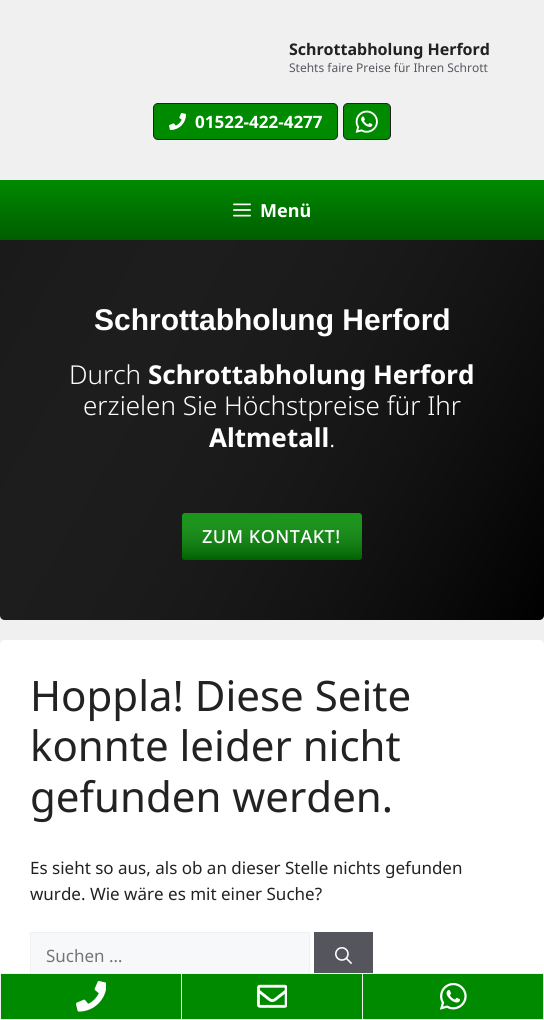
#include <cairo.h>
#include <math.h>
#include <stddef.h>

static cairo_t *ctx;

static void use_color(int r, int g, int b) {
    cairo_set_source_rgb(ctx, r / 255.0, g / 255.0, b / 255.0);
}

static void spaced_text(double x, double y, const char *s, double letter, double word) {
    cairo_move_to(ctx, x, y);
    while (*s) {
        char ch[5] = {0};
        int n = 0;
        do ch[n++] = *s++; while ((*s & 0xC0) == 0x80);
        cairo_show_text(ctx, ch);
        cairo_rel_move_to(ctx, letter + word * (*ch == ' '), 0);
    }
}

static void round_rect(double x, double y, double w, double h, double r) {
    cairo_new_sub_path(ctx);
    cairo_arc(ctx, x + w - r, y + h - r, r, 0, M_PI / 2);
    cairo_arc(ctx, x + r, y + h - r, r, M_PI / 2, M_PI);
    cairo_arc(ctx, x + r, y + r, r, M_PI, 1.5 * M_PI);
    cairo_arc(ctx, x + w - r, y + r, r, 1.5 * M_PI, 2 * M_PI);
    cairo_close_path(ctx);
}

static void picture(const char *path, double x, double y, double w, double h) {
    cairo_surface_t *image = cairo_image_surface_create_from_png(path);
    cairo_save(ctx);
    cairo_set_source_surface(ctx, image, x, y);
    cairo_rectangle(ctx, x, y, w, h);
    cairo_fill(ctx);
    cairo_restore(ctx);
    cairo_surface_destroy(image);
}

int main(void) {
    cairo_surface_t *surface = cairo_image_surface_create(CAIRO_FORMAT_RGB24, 544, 1020);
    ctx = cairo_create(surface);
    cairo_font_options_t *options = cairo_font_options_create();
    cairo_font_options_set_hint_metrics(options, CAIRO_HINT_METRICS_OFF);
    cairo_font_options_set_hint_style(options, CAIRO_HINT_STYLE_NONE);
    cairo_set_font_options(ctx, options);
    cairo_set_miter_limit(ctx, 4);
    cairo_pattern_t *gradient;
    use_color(240, 240, 240);
    cairo_paint(ctx);
    cairo_select_font_face(ctx, "Noto Sans", CAIRO_FONT_SLANT_NORMAL, CAIRO_FONT_WEIGHT_BOLD);
    cairo_set_font_size(ctx, 16);
    use_color(34, 34, 34);
    cairo_move_to(ctx, 289, 55);
    cairo_show_text(ctx, "Schrottabholung Herford");
    cairo_select_font_face(ctx, "Noto Sans", CAIRO_FONT_SLANT_NORMAL, CAIRO_FONT_WEIGHT_NORMAL);
    cairo_set_font_size(ctx, 12);
    use_color(87, 87, 96);
    cairo_move_to(ctx, 289, 72);
    cairo_show_text(ctx, "Stehts faire Preise für Ihren Schrott");
    use_color(0, 138, 0);
    round_rect(153.5, 103.5, 184, 36, 4.5);
    cairo_fill_preserve(ctx);
    use_color(34, 34, 34);
    cairo_set_line_width(ctx, 1);
    cairo_stroke(ctx);
    picture("img1.png", 169, 113, 17, 17);
    cairo_select_font_face(ctx, "Noto Sans", CAIRO_FONT_SLANT_NORMAL, CAIRO_FONT_WEIGHT_BOLD);
    cairo_set_font_size(ctx, 17);
    use_color(255, 255, 255);
    cairo_move_to(ctx, 195, 128);
    cairo_show_text(ctx, "01522-422-4277");
    use_color(0, 138, 0);
    round_rect(343.5, 103.5, 47, 36, 4.5);
    cairo_fill_preserve(ctx);
    use_color(34, 34, 34);
    cairo_stroke(ctx);
    picture("img2.png", 355, 110, 23, 23);
    gradient = cairo_pattern_create_linear(272, 180, 272, 240);
    cairo_pattern_add_color_stop_rgba(gradient, 0, 0, 0.541, 0, 1);
    cairo_pattern_add_color_stop_rgba(gradient, 1, 0, 0.365, 0, 1);
    cairo_set_source(ctx, gradient);
    cairo_pattern_destroy(gradient);
    cairo_rectangle(ctx, 0, 180, 544, 60);
    cairo_fill(ctx);
    picture("img3.png", 233, 203, 18, 14);
    cairo_set_font_size(ctx, 18);
    use_color(255, 255, 255);
    cairo_move_to(ctx, 260, 217);
    cairo_show_text(ctx, "Menü");
    use_color(0, 0, 0);
    cairo_new_path(ctx);
    cairo_move_to(ctx, 0, 240);
    cairo_line_to(ctx, 544, 240);
    cairo_line_to(ctx, 544, 615);
    cairo_curve_to(ctx, 544, 618, 542, 620, 539, 620);
    cairo_line_to(ctx, 5, 620);
    cairo_curve_to(ctx, 2, 620, 0, 618, 0, 615);
    cairo_close_path(ctx);
    cairo_fill(ctx);
    gradient = cairo_pattern_create_linear(-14, 265, 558, 595);
    cairo_pattern_add_color_stop_rgba(gradient, 0, 1, 1, 1, 0.1);
    cairo_pattern_add_color_stop_rgba(gradient, 1, 0, 0, 0, 0.3);
    cairo_set_source(ctx, gradient);
    cairo_pattern_destroy(gradient);
    cairo_new_path(ctx);
    cairo_move_to(ctx, 0, 240);
    cairo_line_to(ctx, 544, 240);
    cairo_line_to(ctx, 544, 615);
    cairo_curve_to(ctx, 544, 618, 542, 620, 539, 620);
    cairo_line_to(ctx, 5, 620);
    cairo_curve_to(ctx, 2, 620, 0, 618, 0, 615);
    cairo_close_path(ctx);
    cairo_fill(ctx);
    cairo_select_font_face(ctx, "Liberation Sans", CAIRO_FONT_SLANT_NORMAL, CAIRO_FONT_WEIGHT_BOLD);
    cairo_set_font_size(ctx, 30);
    use_color(255, 255, 255);
    cairo_move_to(ctx, 94, 330);
    cairo_show_text(ctx, "Schrottabholung Herford");
    cairo_select_font_face(ctx, "Noto Sans Light", CAIRO_FONT_SLANT_NORMAL, CAIRO_FONT_WEIGHT_NORMAL);
    cairo_set_font_size(ctx, 26);
    cairo_move_to(ctx, 69, 384);
    cairo_show_text(ctx, "Durch");
    cairo_select_font_face(ctx, "Noto Sans", CAIRO_FONT_SLANT_NORMAL, CAIRO_FONT_WEIGHT_BOLD);
    cairo_move_to(ctx, 148, 384);
    cairo_show_text(ctx, "Schrottabholung Herford");
    cairo_select_font_face(ctx, "Noto Sans Light", CAIRO_FONT_SLANT_NORMAL, CAIRO_FONT_WEIGHT_NORMAL);
    cairo_move_to(ctx, 83, 415);
    cairo_show_text(ctx, "erzielen Sie Höchstpreise für Ihr");
    cairo_select_font_face(ctx, "Noto Sans", CAIRO_FONT_SLANT_NORMAL, CAIRO_FONT_WEIGHT_BOLD);
    cairo_move_to(ctx, 209, 447);
    cairo_show_text(ctx, "Altmetall");
    cairo_select_font_face(ctx, "Noto Sans Light", CAIRO_FONT_SLANT_NORMAL, CAIRO_FONT_WEIGHT_NORMAL);
    cairo_move_to(ctx, 329, 447);
    cairo_show_text(ctx, ".");
    use_color(0, 138, 0);
    round_rect(182, 513, 180, 47, 3);
    cairo_fill(ctx);
    gradient = cairo_pattern_create_linear(272, 513, 272, 560);
    cairo_pattern_add_color_stop_rgba(gradient, 0, 1, 1, 1, 0.1);
    cairo_pattern_add_color_stop_rgba(gradient, 1, 0, 0, 0, 0.3);
    cairo_set_source(ctx, gradient);
    cairo_pattern_destroy(gradient);
    round_rect(182, 513, 180, 47, 3);
    cairo_fill(ctx);
    cairo_select_font_face(ctx, "Noto Sans Medium", CAIRO_FONT_SLANT_NORMAL, CAIRO_FONT_WEIGHT_NORMAL);
    cairo_set_font_size(ctx, 18);
    use_color(255, 255, 255);
    spaced_text(202, 543, "ZUM KONTAKT!", 0.5, 0);
    round_rect(0, 640, 544, 369, 5);
    cairo_fill(ctx);
    cairo_select_font_face(ctx, "Noto Sans", CAIRO_FONT_SLANT_NORMAL, CAIRO_FONT_WEIGHT_NORMAL);
    cairo_set_font_size(ctx, 42);
    use_color(34, 34, 34);
    cairo_move_to(ctx, 30, 711);
    cairo_show_text(ctx, "Hoppla! Diese Seite");
    cairo_move_to(ctx, 30, 761);
    cairo_show_text(ctx, "konnte leider nicht");
    cairo_move_to(ctx, 30, 812);
    cairo_show_text(ctx, "gefunden werden.");
    cairo_set_font_size(ctx, 17);
    cairo_move_to(ctx, 30, 874);
    cairo_show_text(ctx, "Es sieht so aus, als ob an dieser Stelle nichts gefunden");
    cairo_move_to(ctx, 30, 900);
    cairo_show_text(ctx, "wurde. Wie wäre es mit einer Suche?");
    use_color(247, 248, 249);
    cairo_rectangle(ctx, 31, 933, 278, 40);
    cairo_fill(ctx);
    cairo_rectangle(ctx, 30.5, 932.5, 279, 46);
    use_color(240, 240, 240);
    cairo_stroke(ctx);
    use_color(117, 117, 117);
    cairo_move_to(ctx, 46, 962);
    cairo_show_text(ctx, "Suchen …");
    use_color(85, 85, 94);
    cairo_rectangle(ctx, 314, 932, 59, 41);
    cairo_fill(ctx);
    picture("img4.png", 335, 947, 17, 17);
    use_color(0, 138, 0);
    cairo_rectangle(ctx, 1, 974, 180, 45);
    cairo_fill(ctx);
    use_color(240, 240, 240);
    cairo_rectangle(ctx, 0, 973, 181, 1);
    cairo_fill(ctx);
    cairo_rectangle(ctx, 0, 973, 1, 34);
    cairo_fill(ctx);
    picture("img5.png", 76, 981, 30, 31);
    use_color(0, 138, 0);
    cairo_rectangle(ctx, 181.5, 973.5, 181, 46);
    cairo_fill_preserve(ctx);
    use_color(240, 240, 240);
    cairo_stroke(ctx);
    picture("img6.png", 257, 984, 30, 24);
    use_color(0, 138, 0);
    cairo_rectangle(ctx, 363, 974, 180, 45);
    cairo_fill(ctx);
    use_color(240, 240, 240);
    cairo_rectangle(ctx, 363, 973, 181, 1);
    cairo_fill(ctx);
    cairo_rectangle(ctx, 543, 973, 1, 34);
    cairo_fill(ctx);
    picture("img7.png", 440, 982, 27, 28);
    cairo_surface_write_to_png(surface, "result.png");
    cairo_font_options_destroy(options);
    cairo_destroy(ctx);
    cairo_surface_destroy(surface);
    return 0;
}
